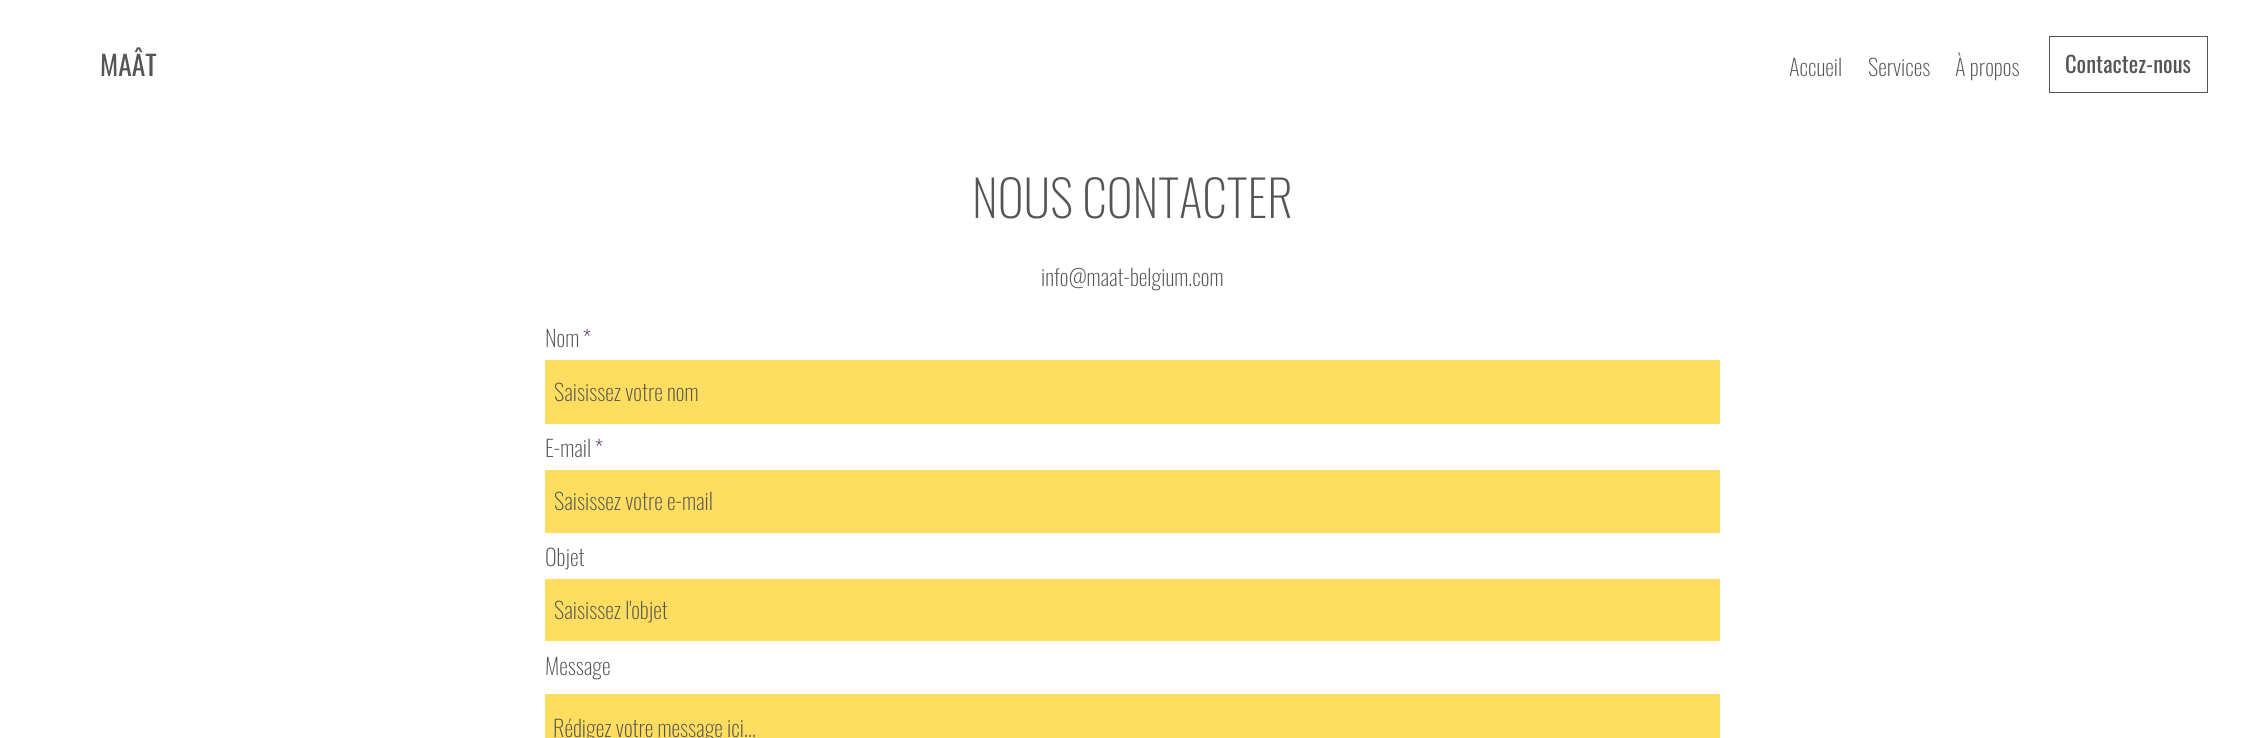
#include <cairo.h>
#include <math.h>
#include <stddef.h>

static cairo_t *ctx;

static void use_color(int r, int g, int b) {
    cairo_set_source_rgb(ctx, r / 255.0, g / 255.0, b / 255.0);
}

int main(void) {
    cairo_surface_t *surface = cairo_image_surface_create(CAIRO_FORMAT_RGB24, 2265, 738);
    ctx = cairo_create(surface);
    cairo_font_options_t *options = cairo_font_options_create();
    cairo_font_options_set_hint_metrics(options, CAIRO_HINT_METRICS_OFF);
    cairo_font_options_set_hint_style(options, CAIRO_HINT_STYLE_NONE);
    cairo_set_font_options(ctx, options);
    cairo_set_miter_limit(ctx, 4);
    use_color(255, 255, 255);
    cairo_paint(ctx);
    cairo_select_font_face(ctx, "Oswald", CAIRO_FONT_SLANT_NORMAL, CAIRO_FONT_WEIGHT_NORMAL);
    cairo_set_font_size(ctx, 27.5);
    use_color(85, 85, 85);
    cairo_move_to(ctx, 100, 76);
    cairo_show_text(ctx, "MAÂT");
    cairo_select_font_face(ctx, "Oswald ExtraLight", CAIRO_FONT_SLANT_NORMAL, CAIRO_FONT_WEIGHT_NORMAL);
    cairo_set_font_size(ctx, 22.5);
    cairo_move_to(ctx, 1789, 76);
    cairo_show_text(ctx, "Accueil");
    cairo_move_to(ctx, 1868, 76);
    cairo_show_text(ctx, "Services");
    cairo_move_to(ctx, 1955, 76);
    cairo_show_text(ctx, "À propos");
    cairo_rectangle(ctx, 2049.5, 36.5, 158, 56);
    cairo_set_line_width(ctx, 1);
    cairo_stroke(ctx);
    cairo_select_font_face(ctx, "Oswald", CAIRO_FONT_SLANT_NORMAL, CAIRO_FONT_WEIGHT_NORMAL);
    cairo_move_to(ctx, 2065, 73);
    cairo_show_text(ctx, "Contactez-nous");
    cairo_select_font_face(ctx, "Oswald ExtraLight", CAIRO_FONT_SLANT_NORMAL, CAIRO_FONT_WEIGHT_NORMAL);
    cairo_set_font_size(ctx, 50);
    cairo_move_to(ctx, 972, 218);
    cairo_show_text(ctx, "NOUS CONTACTER");
    cairo_set_font_size(ctx, 22.5);
    cairo_move_to(ctx, 1041, 286);
    cairo_show_text(ctx, "info@maat-belgium.com");
    cairo_move_to(ctx, 545, 347);
    cairo_show_text(ctx, "Nom");
    use_color(82, 38, 98);
    cairo_move_to(ctx, 583, 347);
    cairo_show_text(ctx, "*");
    use_color(255, 222, 95);
    cairo_rectangle(ctx, 545, 360, 1175, 64);
    cairo_fill(ctx);
    use_color(85, 85, 85);
    cairo_move_to(ctx, 554, 401);
    cairo_show_text(ctx, "Saisissez votre nom");
    cairo_move_to(ctx, 545, 457);
    cairo_show_text(ctx, "E-mail");
    use_color(82, 38, 98);
    cairo_move_to(ctx, 595, 457);
    cairo_show_text(ctx, "*");
    use_color(255, 222, 95);
    cairo_rectangle(ctx, 545, 470, 1175, 63);
    cairo_fill(ctx);
    use_color(85, 85, 85);
    cairo_move_to(ctx, 554, 510);
    cairo_show_text(ctx, "Saisissez votre e-mail");
    cairo_move_to(ctx, 545, 566);
    cairo_show_text(ctx, "Objet");
    use_color(255, 222, 95);
    cairo_rectangle(ctx, 545, 579, 1175, 62);
    cairo_fill(ctx);
    use_color(85, 85, 85);
    cairo_move_to(ctx, 554, 619);
    cairo_show_text(ctx, "Saisissez l'objet");
    cairo_move_to(ctx, 545, 675);
    cairo_show_text(ctx, "Message");
    use_color(255, 222, 95);
    cairo_rectangle(ctx, 545, 694, 1175, 44);
    cairo_fill(ctx);
    use_color(85, 85, 85);
    cairo_move_to(ctx, 553, 737);
    cairo_show_text(ctx, "Rédigez votre message ici...");
    cairo_surface_write_to_png(surface, "result.png");
    cairo_font_options_destroy(options);
    cairo_destroy(ctx);
    cairo_surface_destroy(surface);
    return 0;
}
